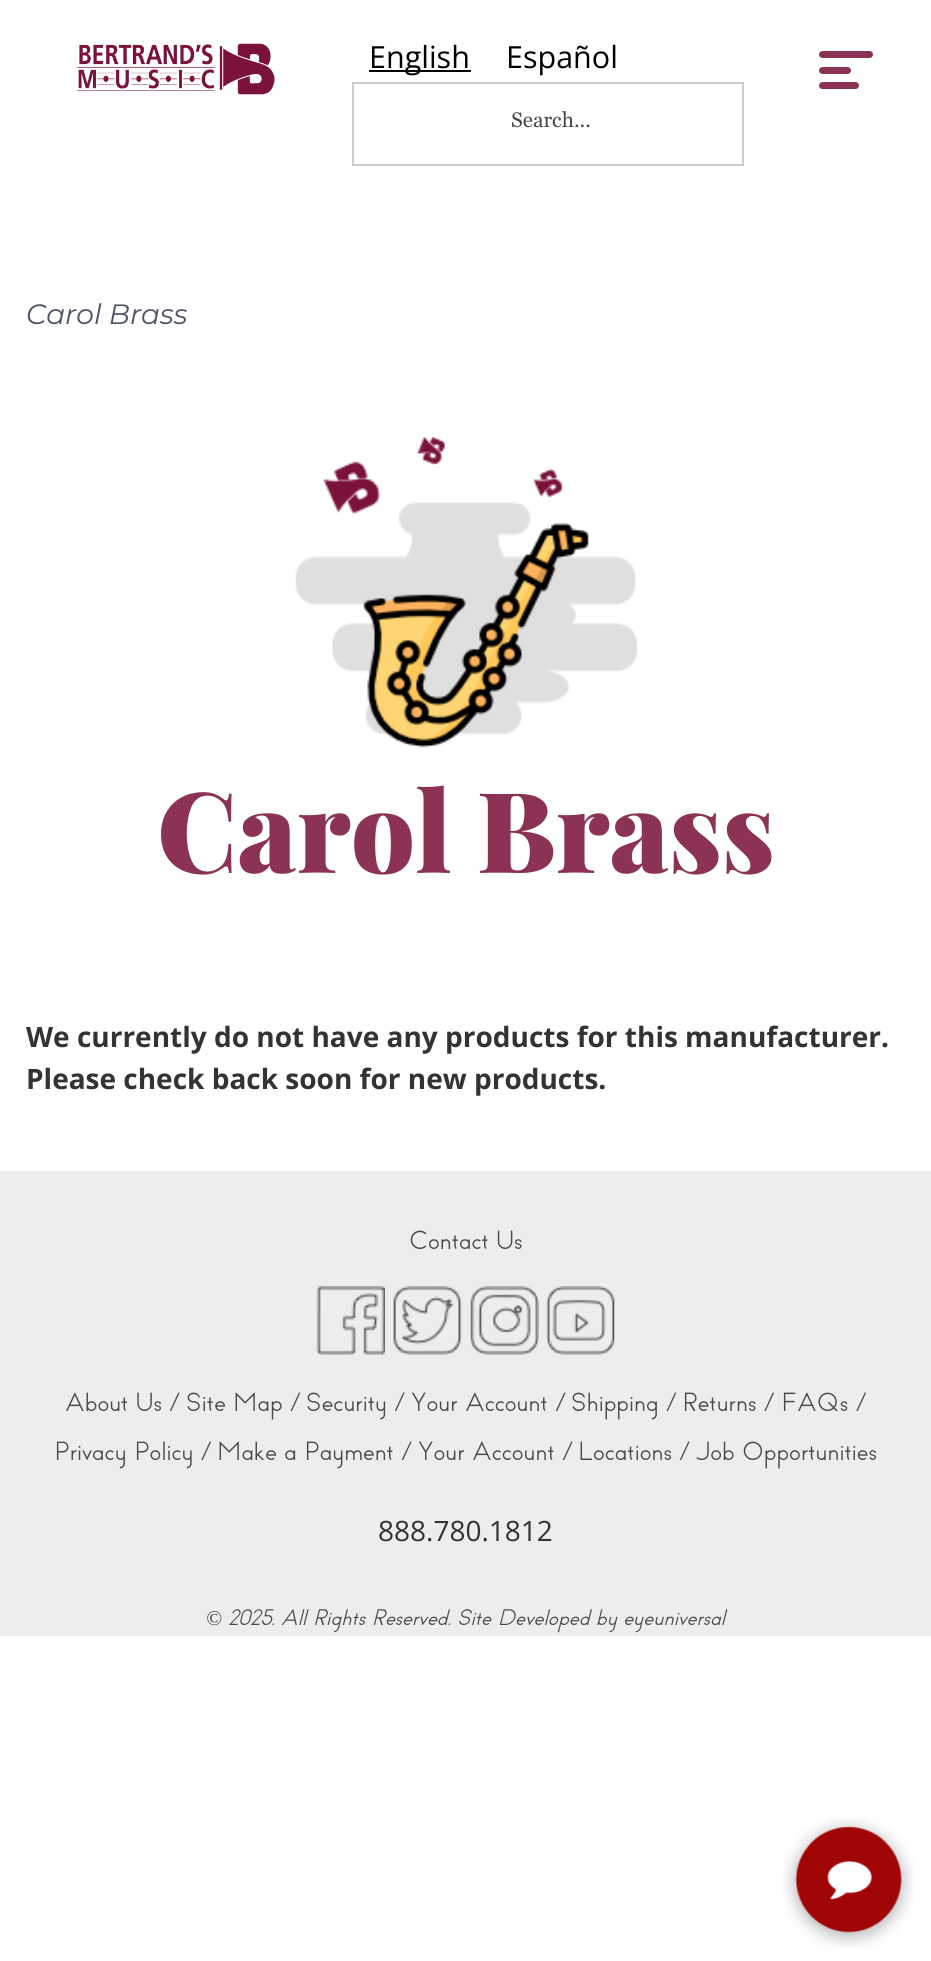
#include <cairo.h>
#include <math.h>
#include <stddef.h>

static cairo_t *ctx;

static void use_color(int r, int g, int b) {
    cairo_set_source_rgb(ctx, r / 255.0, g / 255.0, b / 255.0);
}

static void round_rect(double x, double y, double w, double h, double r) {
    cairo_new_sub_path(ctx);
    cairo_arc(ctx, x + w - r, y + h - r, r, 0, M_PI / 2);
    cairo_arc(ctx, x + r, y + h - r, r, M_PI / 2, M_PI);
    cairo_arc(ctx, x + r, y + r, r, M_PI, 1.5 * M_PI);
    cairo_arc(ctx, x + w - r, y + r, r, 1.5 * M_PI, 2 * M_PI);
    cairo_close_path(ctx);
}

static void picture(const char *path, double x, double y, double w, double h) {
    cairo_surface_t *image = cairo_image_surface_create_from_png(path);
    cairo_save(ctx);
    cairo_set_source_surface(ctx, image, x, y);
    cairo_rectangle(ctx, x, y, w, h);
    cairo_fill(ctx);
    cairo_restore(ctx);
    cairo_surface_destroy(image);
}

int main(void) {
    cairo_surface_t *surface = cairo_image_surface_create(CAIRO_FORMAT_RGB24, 931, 1961);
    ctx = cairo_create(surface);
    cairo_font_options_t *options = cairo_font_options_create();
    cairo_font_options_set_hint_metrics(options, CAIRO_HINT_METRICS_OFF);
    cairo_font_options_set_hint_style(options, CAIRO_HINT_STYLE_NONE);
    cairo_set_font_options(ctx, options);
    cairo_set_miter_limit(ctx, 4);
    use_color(255, 255, 255);
    cairo_paint(ctx);
    picture("img1.png", 77, 43, 198, 52);
    use_color(0, 0, 0);
    cairo_rectangle(ctx, 369, 70, 102, 2);
    cairo_fill(ctx);
    cairo_select_font_face(ctx, "Open Sans", CAIRO_FONT_SLANT_NORMAL, CAIRO_FONT_WEIGHT_NORMAL);
    cairo_set_font_size(ctx, 30.5);
    cairo_move_to(ctx, 369, 68);
    cairo_show_text(ctx, "English");
    cairo_move_to(ctx, 506, 68);
    cairo_show_text(ctx, "Español");
    cairo_rectangle(ctx, 353, 83, 390, 82);
    use_color(204, 204, 204);
    cairo_stroke(ctx);
    cairo_select_font_face(ctx, "Georgia", CAIRO_FONT_SLANT_NORMAL, CAIRO_FONT_WEIGHT_NORMAL);
    cairo_set_font_size(ctx, 21);
    use_color(74, 74, 74);
    cairo_move_to(ctx, 511, 127);
    cairo_show_text(ctx, "Search...");
    use_color(140, 50, 84);
    round_rect(819, 51, 54, 7, 3.5);
    cairo_fill(ctx);
    round_rect(819, 67, 32, 7, 3.5);
    cairo_fill(ctx);
    round_rect(819, 82, 40, 7, 3.5);
    cairo_fill(ctx);
    cairo_select_font_face(ctx, "Montserrat", CAIRO_FONT_SLANT_ITALIC, CAIRO_FONT_WEIGHT_NORMAL);
    cairo_set_font_size(ctx, 28);
    use_color(78, 85, 100);
    cairo_move_to(ctx, 26, 324);
    cairo_show_text(ctx, "Carol Brass");
    picture("img2.png", 295, 436, 342, 312);
    cairo_select_font_face(ctx, "Playfair Display Black", CAIRO_FONT_SLANT_NORMAL, CAIRO_FONT_WEIGHT_NORMAL);
    cairo_set_font_size(ctx, 112);
    use_color(140, 50, 84);
    cairo_move_to(ctx, 157, 873);
    cairo_show_text(ctx, "Carol Brass");
    cairo_select_font_face(ctx, "Open Sans", CAIRO_FONT_SLANT_NORMAL, CAIRO_FONT_WEIGHT_BOLD);
    cairo_set_font_size(ctx, 28);
    use_color(51, 51, 51);
    cairo_move_to(ctx, 26, 1047);
    cairo_show_text(ctx, "We currently do not have any products for this manufacturer.");
    cairo_move_to(ctx, 26, 1089);
    cairo_show_text(ctx, "Please check back soon for new products.");
    use_color(237, 237, 237);
    cairo_rectangle(ctx, 0, 1171, 931, 465);
    cairo_fill(ctx);
    cairo_select_font_face(ctx, "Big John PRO", CAIRO_FONT_SLANT_NORMAL, CAIRO_FONT_WEIGHT_NORMAL);
    cairo_set_font_size(ctx, 24.5);
    use_color(74, 74, 74);
    cairo_move_to(ctx, 409, 1249);
    cairo_show_text(ctx, "Contact Us");
    picture("img3.png", 316, 1286, 69, 69);
    picture("img4.png", 393, 1286, 69, 69);
    picture("img5.png", 470, 1286, 69, 69);
    picture("img6.png", 546, 1286, 69, 69);
    cairo_move_to(ctx, 65, 1411);
    cairo_show_text(ctx, "About Us /");
    cairo_move_to(ctx, 186, 1411);
    cairo_show_text(ctx, "Site Map /");
    cairo_move_to(ctx, 306, 1411);
    cairo_show_text(ctx, "Security /");
    cairo_move_to(ctx, 411, 1411);
    cairo_show_text(ctx, "Your Account /");
    cairo_move_to(ctx, 571, 1411);
    cairo_show_text(ctx, "Shipping /");
    cairo_move_to(ctx, 682, 1411);
    cairo_show_text(ctx, "Returns /");
    cairo_move_to(ctx, 781, 1411);
    cairo_show_text(ctx, "FAQs /");
    cairo_move_to(ctx, 54, 1460);
    cairo_show_text(ctx, "Privacy Policy /");
    cairo_move_to(ctx, 217, 1460);
    cairo_show_text(ctx, "Make a Payment /");
    cairo_move_to(ctx, 418, 1460);
    cairo_show_text(ctx, "Your Account /");
    cairo_move_to(ctx, 578, 1460);
    cairo_show_text(ctx, "Locations /");
    cairo_move_to(ctx, 696, 1460);
    cairo_show_text(ctx, "Job Opportunities");
    cairo_select_font_face(ctx, "Open Sans", CAIRO_FONT_SLANT_NORMAL, CAIRO_FONT_WEIGHT_NORMAL);
    cairo_set_font_size(ctx, 28);
    use_color(51, 51, 51);
    cairo_move_to(ctx, 378, 1541);
    cairo_show_text(ctx, "888.780.1812");
    cairo_select_font_face(ctx, "Liberation Serif", CAIRO_FONT_SLANT_ITALIC, CAIRO_FONT_WEIGHT_NORMAL);
    cairo_set_font_size(ctx, 21);
    use_color(74, 74, 74);
    cairo_move_to(ctx, 206, 1625);
    cairo_show_text(ctx, "©");
    cairo_select_font_face(ctx, "Big John PRO", CAIRO_FONT_SLANT_ITALIC, CAIRO_FONT_WEIGHT_NORMAL);
    cairo_move_to(ctx, 228, 1625);
    cairo_show_text(ctx, "2025. All Rights Reserved. Site Developed by eyeuniversal");
    picture("img7.png", 783, 1818, 131, 130);
    cairo_surface_write_to_png(surface, "result.png");
    cairo_font_options_destroy(options);
    cairo_destroy(ctx);
    cairo_surface_destroy(surface);
    return 0;
}
